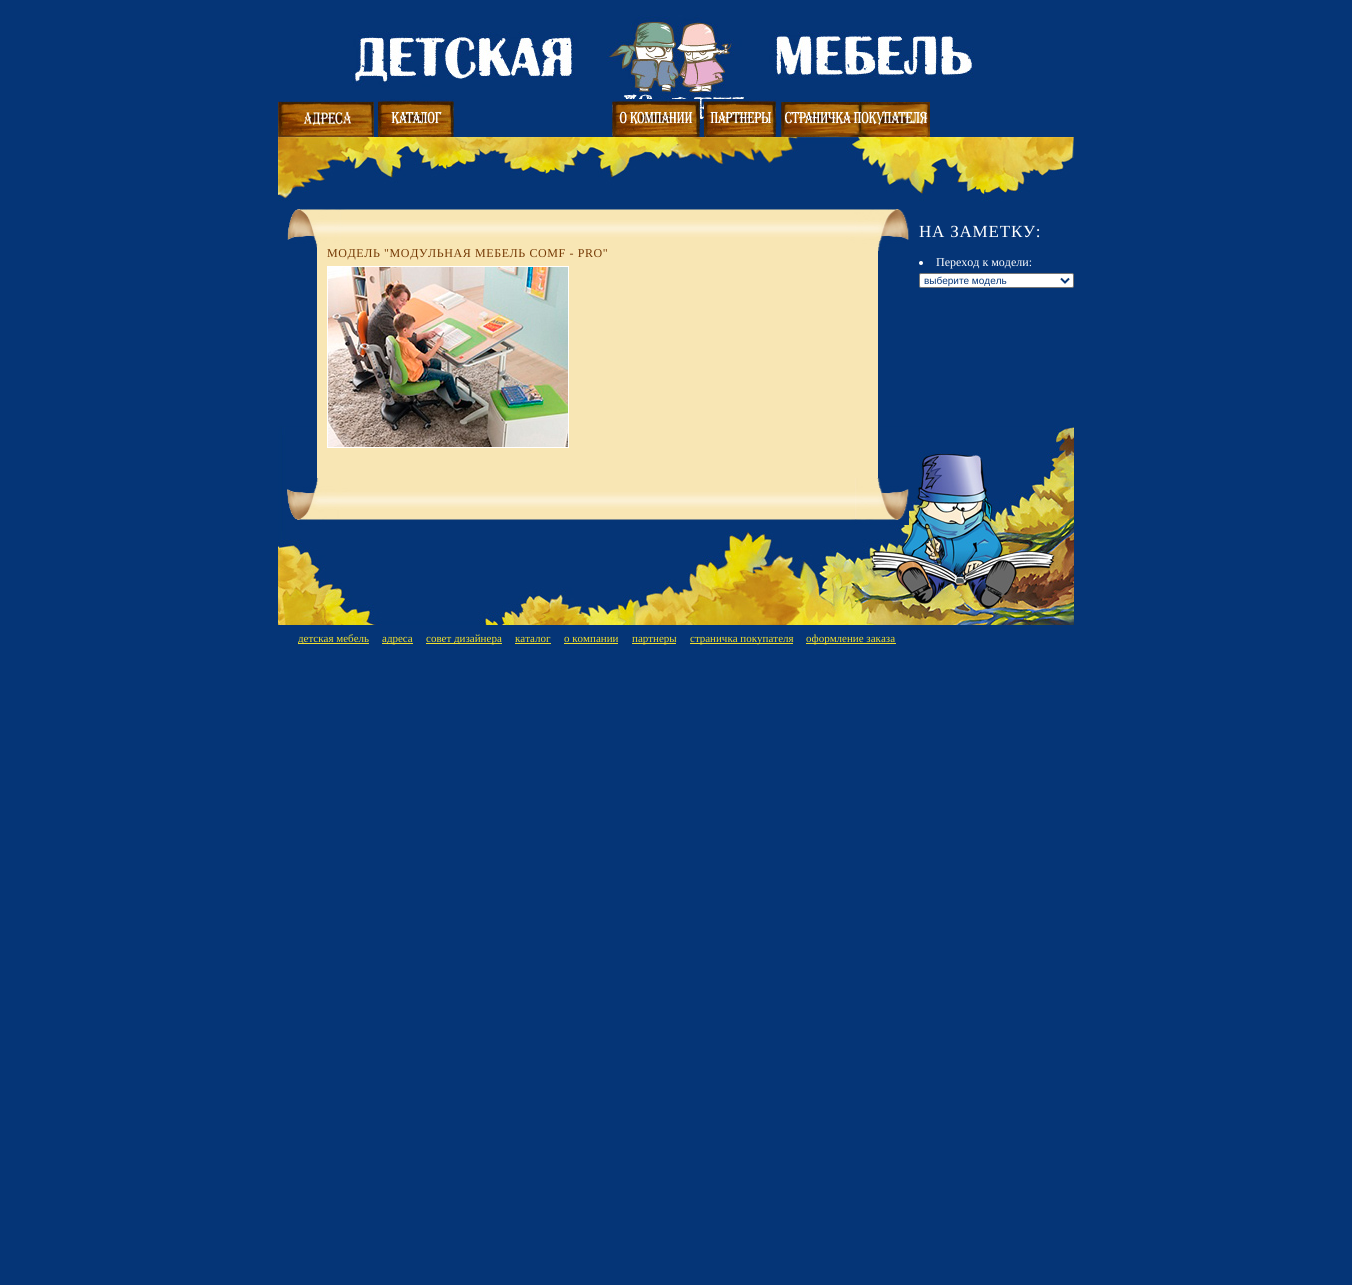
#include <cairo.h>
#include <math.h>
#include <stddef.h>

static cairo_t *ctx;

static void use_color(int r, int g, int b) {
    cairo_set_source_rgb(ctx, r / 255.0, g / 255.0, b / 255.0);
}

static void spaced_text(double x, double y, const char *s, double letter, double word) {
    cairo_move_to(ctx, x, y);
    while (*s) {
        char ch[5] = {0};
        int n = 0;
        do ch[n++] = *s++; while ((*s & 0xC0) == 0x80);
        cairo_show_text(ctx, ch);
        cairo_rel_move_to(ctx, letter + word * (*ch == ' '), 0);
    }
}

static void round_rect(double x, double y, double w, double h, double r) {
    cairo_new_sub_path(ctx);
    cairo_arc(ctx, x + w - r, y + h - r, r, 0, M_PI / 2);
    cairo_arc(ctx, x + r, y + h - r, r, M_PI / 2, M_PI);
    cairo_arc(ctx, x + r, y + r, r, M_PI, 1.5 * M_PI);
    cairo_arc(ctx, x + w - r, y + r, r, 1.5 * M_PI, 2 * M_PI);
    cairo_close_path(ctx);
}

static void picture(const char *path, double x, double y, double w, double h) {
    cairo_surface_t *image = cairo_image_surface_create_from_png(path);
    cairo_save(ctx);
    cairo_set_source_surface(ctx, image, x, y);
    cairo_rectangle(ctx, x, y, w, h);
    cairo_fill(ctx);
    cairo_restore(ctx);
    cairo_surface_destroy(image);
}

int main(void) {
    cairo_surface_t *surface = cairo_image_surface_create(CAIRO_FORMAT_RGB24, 1352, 1285);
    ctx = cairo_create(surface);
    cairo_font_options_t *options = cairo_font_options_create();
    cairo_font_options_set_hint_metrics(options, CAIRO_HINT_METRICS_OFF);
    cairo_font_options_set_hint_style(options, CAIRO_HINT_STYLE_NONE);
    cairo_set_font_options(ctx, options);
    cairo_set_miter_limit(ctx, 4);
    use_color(5, 53, 119);
    cairo_paint(ctx);
    picture("img1.png", 350, 15, 624, 112);
    picture("img2.png", 278, 100, 96, 37);
    picture("img3.png", 378, 99, 76, 38);
    picture("img4.png", 612, 99, 88, 38);
    picture("img5.png", 704, 99, 73, 38);
    picture("img6.png", 781, 100, 149, 37);
    picture("img7.png", 278, 137, 796, 64);
    picture("img8.png", 278, 426, 796, 199);
    picture("img9.png", 287, 209, 622, 42);
    use_color(248, 230, 180);
    cairo_rectangle(ctx, 317, 246, 561, 232);
    cairo_fill(ctx);
    cairo_select_font_face(ctx, "Liberation Serif", CAIRO_FONT_SLANT_NORMAL, CAIRO_FONT_WEIGHT_NORMAL);
    cairo_set_font_size(ctx, 12);
    use_color(116, 56, 4);
    spaced_text(327, 257, "МОДЕЛЬ \"МОДУЛЬНАЯ МЕБЕЛЬ COMF - PRO\"", 0.6, 0);
    cairo_rectangle(ctx, 327.5, 266.5, 241, 181);
    use_color(255, 255, 255);
    cairo_set_line_width(ctx, 1);
    cairo_stroke(ctx);
    picture("img10.png", 328, 267, 240, 180);
    picture("img11.png", 287, 478, 622, 47);
    cairo_set_font_size(ctx, 17);
    spaced_text(919, 237, "НА ЗАМЕТКУ:", 0.8, 0);
    cairo_new_path(ctx);
    cairo_arc(ctx, 921, 263, 2, 0, 2 * M_PI);
    cairo_fill(ctx);
    cairo_set_font_size(ctx, 12);
    cairo_move_to(ctx, 936, 266);
    cairo_show_text(ctx, "Переход к модели:");
    round_rect(919.5, 273.5, 154, 14, 1.5);
    cairo_fill_preserve(ctx);
    use_color(118, 118, 118);
    cairo_stroke(ctx);
    cairo_new_path(ctx);
    cairo_move_to(ctx, 1061, 278.5);
    cairo_line_to(ctx, 1065, 282.5);
    cairo_line_to(ctx, 1069, 278.5);
    use_color(5, 53, 119);
    cairo_set_line_width(ctx, 2);
    cairo_stroke(ctx);
    cairo_select_font_face(ctx, "Liberation Sans", CAIRO_FONT_SLANT_NORMAL, CAIRO_FONT_WEIGHT_NORMAL);
    cairo_set_font_size(ctx, 10);
    cairo_move_to(ctx, 924, 284);
    cairo_show_text(ctx, "выберите модель");
    use_color(240, 223, 45);
    cairo_rectangle(ctx, 298, 643, 71, 1);
    cairo_fill(ctx);
    cairo_select_font_face(ctx, "Liberation Serif", CAIRO_FONT_SLANT_NORMAL, CAIRO_FONT_WEIGHT_NORMAL);
    cairo_set_font_size(ctx, 11);
    cairo_move_to(ctx, 298, 642);
    cairo_show_text(ctx, "детская мебель");
    cairo_rectangle(ctx, 382, 643, 31, 1);
    cairo_fill(ctx);
    cairo_move_to(ctx, 382, 642);
    cairo_show_text(ctx, "адреса");
    cairo_rectangle(ctx, 426, 643, 76, 1);
    cairo_fill(ctx);
    cairo_move_to(ctx, 426, 642);
    cairo_show_text(ctx, "совет дизайнера");
    cairo_move_to(ctx, 515, 642);
    cairo_show_text(ctx, "каталог");
    cairo_rectangle(ctx, 515, 643, 36, 1);
    cairo_fill(ctx);
    cairo_move_to(ctx, 564, 642);
    cairo_show_text(ctx, "о компании");
    cairo_rectangle(ctx, 564, 643, 54, 1);
    cairo_fill(ctx);
    cairo_rectangle(ctx, 632, 643, 44, 1);
    cairo_fill(ctx);
    cairo_move_to(ctx, 632, 642);
    cairo_show_text(ctx, "партнеры");
    cairo_rectangle(ctx, 690, 643, 103, 1);
    cairo_fill(ctx);
    cairo_move_to(ctx, 690, 642);
    cairo_show_text(ctx, "страничка покупателя");
    cairo_rectangle(ctx, 806, 643, 90, 1);
    cairo_fill(ctx);
    cairo_move_to(ctx, 806, 642);
    cairo_show_text(ctx, "оформление заказа");
    cairo_surface_write_to_png(surface, "result.png");
    cairo_font_options_destroy(options);
    cairo_destroy(ctx);
    cairo_surface_destroy(surface);
    return 0;
}
